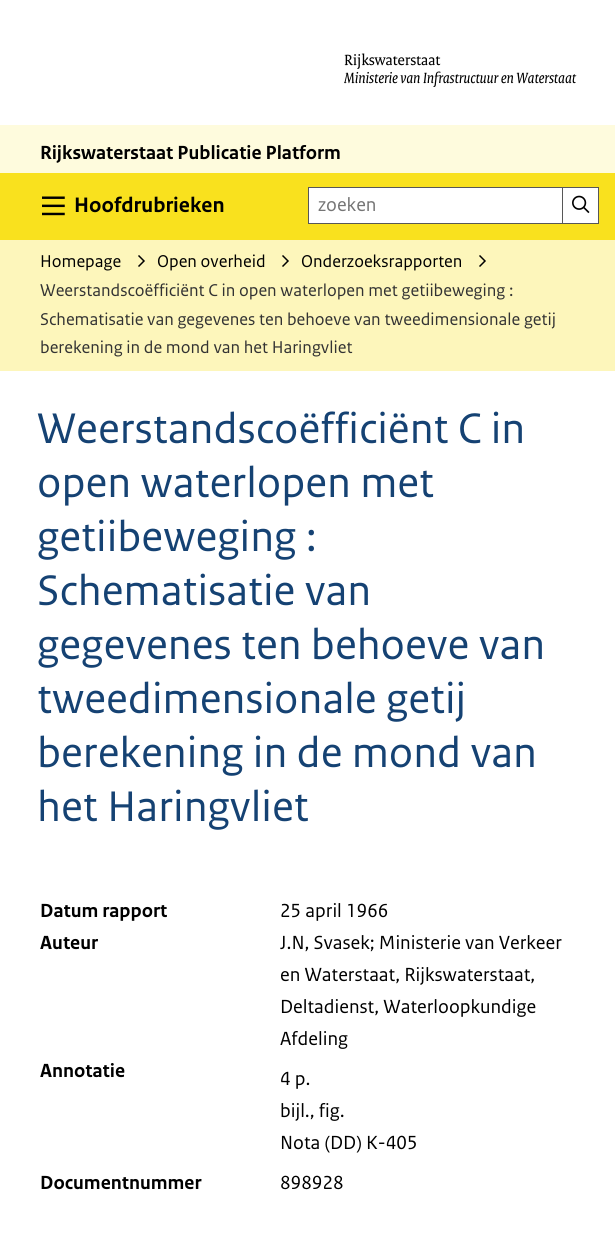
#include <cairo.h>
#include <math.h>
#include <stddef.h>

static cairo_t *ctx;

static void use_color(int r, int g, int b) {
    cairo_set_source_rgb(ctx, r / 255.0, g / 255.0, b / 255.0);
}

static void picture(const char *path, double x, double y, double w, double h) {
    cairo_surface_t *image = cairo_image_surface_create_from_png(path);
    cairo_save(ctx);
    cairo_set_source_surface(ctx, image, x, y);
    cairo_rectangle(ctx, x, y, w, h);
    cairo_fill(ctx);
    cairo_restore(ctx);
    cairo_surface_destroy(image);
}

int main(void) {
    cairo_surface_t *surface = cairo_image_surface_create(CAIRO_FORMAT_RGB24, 615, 1233);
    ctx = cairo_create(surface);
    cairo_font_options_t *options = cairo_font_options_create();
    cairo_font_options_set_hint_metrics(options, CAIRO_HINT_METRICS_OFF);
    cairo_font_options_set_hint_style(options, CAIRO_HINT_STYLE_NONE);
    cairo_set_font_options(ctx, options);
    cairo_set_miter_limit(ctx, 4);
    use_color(255, 255, 255);
    cairo_paint(ctx);
    cairo_select_font_face(ctx, "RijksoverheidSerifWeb", CAIRO_FONT_SLANT_NORMAL, CAIRO_FONT_WEIGHT_NORMAL);
    cairo_set_font_size(ctx, 16);
    use_color(0, 0, 0);
    cairo_move_to(ctx, 344, 65);
    cairo_show_text(ctx, "Rijkswaterstaat");
    cairo_select_font_face(ctx, "RijksoverheidSerifWeb", CAIRO_FONT_SLANT_ITALIC, CAIRO_FONT_WEIGHT_NORMAL);
    cairo_move_to(ctx, 344, 83);
    cairo_show_text(ctx, "Ministerie van Infrastructuur en Waterstaat");
    use_color(254, 251, 221);
    cairo_rectangle(ctx, 0, 125, 615, 48);
    cairo_fill(ctx);
    cairo_select_font_face(ctx, "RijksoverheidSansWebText", CAIRO_FONT_SLANT_NORMAL, CAIRO_FONT_WEIGHT_BOLD);
    cairo_set_font_size(ctx, 20);
    use_color(0, 0, 0);
    cairo_move_to(ctx, 40, 159);
    cairo_show_text(ctx, "Rijkswaterstaat Publicatie Platform");
    use_color(249, 225, 30);
    cairo_rectangle(ctx, 0, 173, 615, 67);
    cairo_fill(ctx);
    picture("img1.png", 42, 196, 23, 20);
    cairo_set_font_size(ctx, 22);
    use_color(0, 0, 0);
    cairo_move_to(ctx, 74, 212);
    cairo_show_text(ctx, "Hoofdrubrieken");
    use_color(255, 255, 255);
    cairo_rectangle(ctx, 308.5, 187.5, 254, 36);
    cairo_fill_preserve(ctx);
    use_color(87, 87, 87);
    cairo_set_line_width(ctx, 1);
    cairo_stroke(ctx);
    cairo_select_font_face(ctx, "RijksoverheidSansWebText", CAIRO_FONT_SLANT_NORMAL, CAIRO_FONT_WEIGHT_NORMAL);
    cairo_set_font_size(ctx, 20);
    use_color(117, 117, 117);
    cairo_move_to(ctx, 318, 211);
    cairo_show_text(ctx, "zoeken");
    use_color(255, 255, 255);
    cairo_rectangle(ctx, 562.5, 187.5, 36, 36);
    cairo_fill_preserve(ctx);
    use_color(87, 87, 87);
    cairo_stroke(ctx);
    picture("img2.png", 572, 195, 18, 19);
    use_color(253, 246, 187);
    cairo_rectangle(ctx, 0, 240, 615, 131);
    cairo_fill(ctx);
    cairo_set_font_size(ctx, 18);
    use_color(0, 0, 0);
    cairo_move_to(ctx, 40, 267);
    cairo_show_text(ctx, "Homepage");
    picture("img3.png", 138, 255, 7, 12);
    cairo_move_to(ctx, 157, 267);
    cairo_show_text(ctx, "Open overheid");
    picture("img3.png", 282, 255, 7, 12);
    cairo_move_to(ctx, 301, 267);
    cairo_show_text(ctx, "Onderzoeksrapporten");
    picture("img3.png", 479, 255, 7, 12);
    use_color(51, 51, 51);
    cairo_move_to(ctx, 40, 296);
    cairo_show_text(ctx, "Weerstandscoëfficiënt C in open waterlopen met getiibeweging :");
    cairo_move_to(ctx, 40, 325);
    cairo_show_text(ctx, "Schematisatie van gegevenes ten behoeve van tweedimensionale getij");
    cairo_move_to(ctx, 40, 353);
    cairo_show_text(ctx, "berekening in de mond van het Haringvliet");
    cairo_set_font_size(ctx, 45);
    use_color(21, 66, 115);
    cairo_move_to(ctx, 37, 443);
    cairo_show_text(ctx, "Weerstandscoëfficiënt C in");
    cairo_move_to(ctx, 37, 497);
    cairo_show_text(ctx, "open waterlopen met");
    cairo_move_to(ctx, 37, 551);
    cairo_show_text(ctx, "getiibeweging :");
    cairo_move_to(ctx, 37, 605);
    cairo_show_text(ctx, "Schematisatie van");
    cairo_move_to(ctx, 37, 659);
    cairo_show_text(ctx, "gegevenes ten behoeve van");
    cairo_move_to(ctx, 37, 713);
    cairo_show_text(ctx, "tweedimensionale getij");
    cairo_move_to(ctx, 37, 767);
    cairo_show_text(ctx, "berekening in de mond van");
    cairo_move_to(ctx, 37, 821);
    cairo_show_text(ctx, "het Haringvliet");
    cairo_select_font_face(ctx, "RijksoverheidSansWebText", CAIRO_FONT_SLANT_NORMAL, CAIRO_FONT_WEIGHT_BOLD);
    cairo_set_font_size(ctx, 20);
    use_color(0, 0, 0);
    cairo_move_to(ctx, 40, 917);
    cairo_show_text(ctx, "Datum rapport");
    cairo_select_font_face(ctx, "RijksoverheidSansWebText", CAIRO_FONT_SLANT_NORMAL, CAIRO_FONT_WEIGHT_NORMAL);
    cairo_move_to(ctx, 280, 917);
    cairo_show_text(ctx, "25 april 1966");
    cairo_select_font_face(ctx, "RijksoverheidSansWebText", CAIRO_FONT_SLANT_NORMAL, CAIRO_FONT_WEIGHT_BOLD);
    cairo_move_to(ctx, 40, 949);
    cairo_show_text(ctx, "Auteur");
    cairo_select_font_face(ctx, "RijksoverheidSansWebText", CAIRO_FONT_SLANT_NORMAL, CAIRO_FONT_WEIGHT_NORMAL);
    cairo_move_to(ctx, 280, 949);
    cairo_show_text(ctx, "J.N, Svasek; Ministerie van Verkeer");
    cairo_move_to(ctx, 280, 981);
    cairo_show_text(ctx, "en Waterstaat, Rijkswaterstaat,");
    cairo_move_to(ctx, 280, 1013);
    cairo_show_text(ctx, "Deltadienst, Waterloopkundige");
    cairo_move_to(ctx, 280, 1045);
    cairo_show_text(ctx, "Afdeling");
    cairo_select_font_face(ctx, "RijksoverheidSansWebText", CAIRO_FONT_SLANT_NORMAL, CAIRO_FONT_WEIGHT_BOLD);
    cairo_move_to(ctx, 40, 1077);
    cairo_show_text(ctx, "Annotatie");
    cairo_select_font_face(ctx, "RijksoverheidSansWebText", CAIRO_FONT_SLANT_NORMAL, CAIRO_FONT_WEIGHT_NORMAL);
    cairo_move_to(ctx, 280, 1085);
    cairo_show_text(ctx, "4 p.");
    cairo_move_to(ctx, 280, 1117);
    cairo_show_text(ctx, "bijl., fig.");
    cairo_move_to(ctx, 280, 1149);
    cairo_show_text(ctx, "Nota (DD) K-405");
    cairo_select_font_face(ctx, "RijksoverheidSansWebText", CAIRO_FONT_SLANT_NORMAL, CAIRO_FONT_WEIGHT_BOLD);
    cairo_move_to(ctx, 40, 1189);
    cairo_show_text(ctx, "Documentnummer");
    cairo_select_font_face(ctx, "RijksoverheidSansWebText", CAIRO_FONT_SLANT_NORMAL, CAIRO_FONT_WEIGHT_NORMAL);
    cairo_move_to(ctx, 280, 1189);
    cairo_show_text(ctx, "898928");
    cairo_surface_write_to_png(surface, "result.png");
    cairo_font_options_destroy(options);
    cairo_destroy(ctx);
    cairo_surface_destroy(surface);
    return 0;
}
